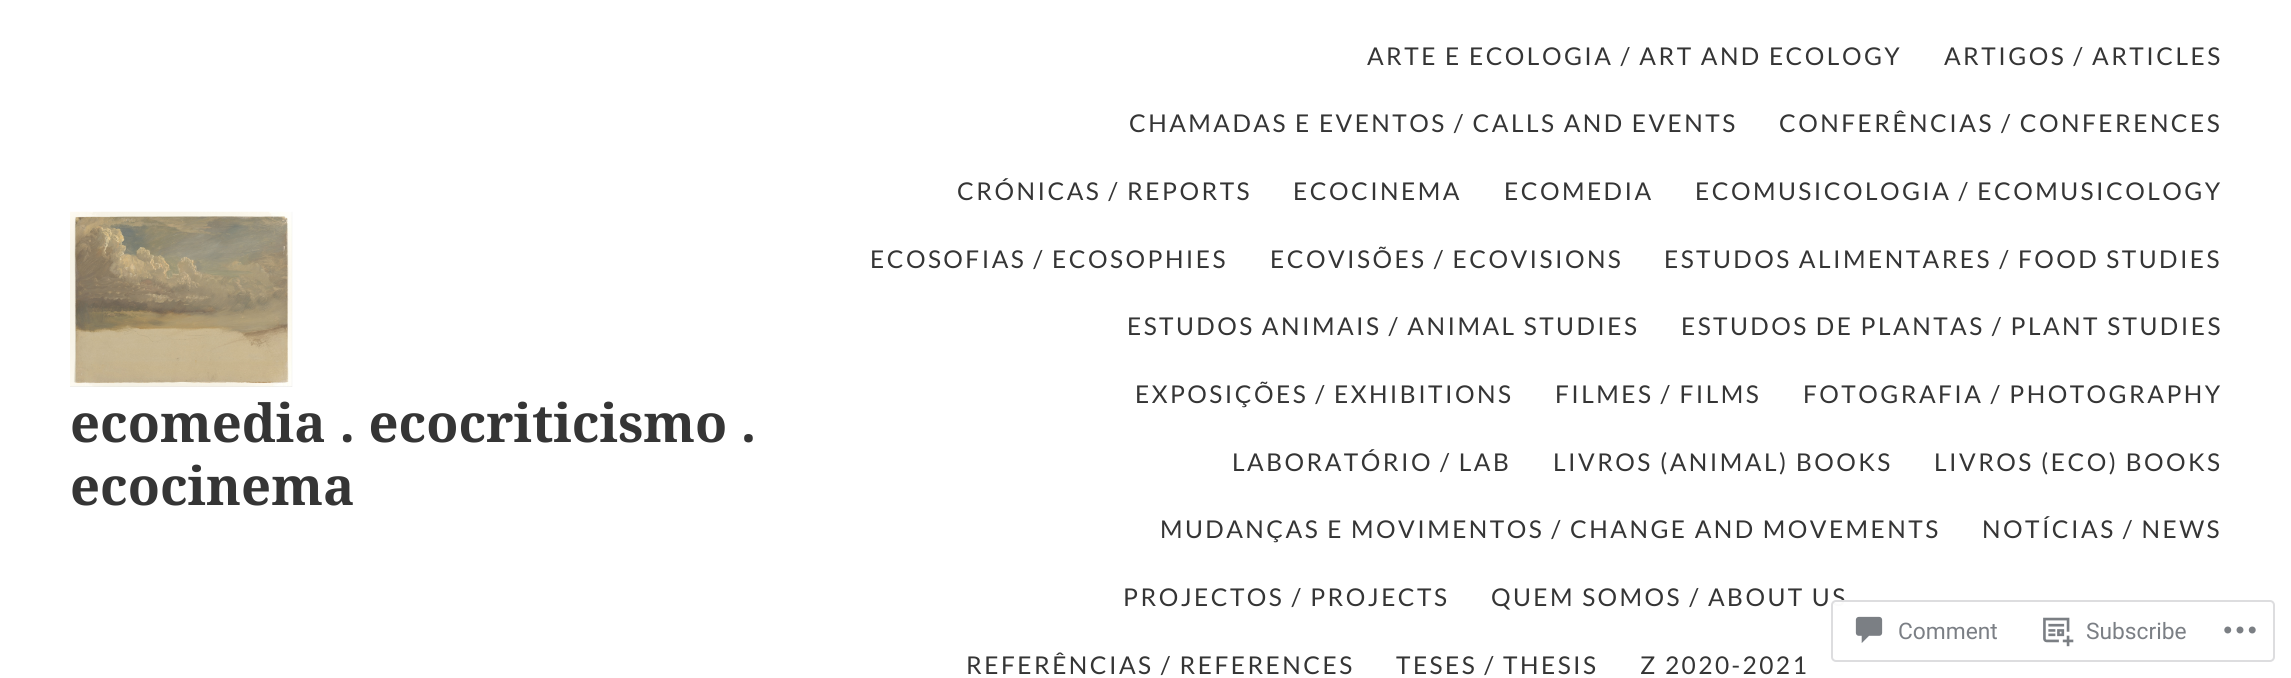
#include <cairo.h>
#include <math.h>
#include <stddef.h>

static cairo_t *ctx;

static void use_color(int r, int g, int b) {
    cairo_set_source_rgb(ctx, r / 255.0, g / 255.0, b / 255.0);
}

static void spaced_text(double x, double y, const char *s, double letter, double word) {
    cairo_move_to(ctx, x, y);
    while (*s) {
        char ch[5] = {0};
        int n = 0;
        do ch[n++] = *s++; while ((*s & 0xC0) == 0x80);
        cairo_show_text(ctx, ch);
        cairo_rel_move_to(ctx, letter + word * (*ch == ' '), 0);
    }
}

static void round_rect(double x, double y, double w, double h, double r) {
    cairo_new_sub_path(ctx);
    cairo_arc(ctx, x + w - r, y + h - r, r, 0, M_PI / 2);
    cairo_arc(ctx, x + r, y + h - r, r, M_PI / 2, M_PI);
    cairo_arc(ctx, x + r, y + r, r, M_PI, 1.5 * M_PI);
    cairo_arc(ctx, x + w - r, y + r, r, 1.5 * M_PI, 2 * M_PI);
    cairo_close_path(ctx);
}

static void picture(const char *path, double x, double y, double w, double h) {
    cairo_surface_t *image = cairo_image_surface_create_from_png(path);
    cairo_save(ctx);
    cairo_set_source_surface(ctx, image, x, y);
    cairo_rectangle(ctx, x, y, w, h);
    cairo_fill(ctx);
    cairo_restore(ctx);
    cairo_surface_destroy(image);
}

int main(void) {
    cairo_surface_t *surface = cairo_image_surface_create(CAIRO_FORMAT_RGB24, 2291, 678);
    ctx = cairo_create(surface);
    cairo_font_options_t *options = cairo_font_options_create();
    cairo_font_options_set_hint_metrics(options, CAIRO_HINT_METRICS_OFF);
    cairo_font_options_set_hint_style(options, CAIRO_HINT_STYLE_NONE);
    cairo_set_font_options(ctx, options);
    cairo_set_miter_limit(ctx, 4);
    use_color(255, 255, 255);
    cairo_paint(ctx);
    picture("img1.png", 70, 211, 223, 176);
    cairo_select_font_face(ctx, "Noto Serif", CAIRO_FONT_SLANT_NORMAL, CAIRO_FONT_WEIGHT_BOLD);
    cairo_set_font_size(ctx, 52.5);
    use_color(53, 53, 53);
    cairo_move_to(ctx, 70, 442);
    cairo_show_text(ctx, "ecomedia . ecocriticismo .");
    cairo_move_to(ctx, 70, 505);
    cairo_show_text(ctx, "ecocinema");
    cairo_select_font_face(ctx, "Lato", CAIRO_FONT_SLANT_NORMAL, CAIRO_FONT_WEIGHT_NORMAL);
    cairo_set_font_size(ctx, 24.5);
    spaced_text(1367, 65, "ARTE E ECOLOGIA / ART AND ECOLOGY", 2.45, 0);
    spaced_text(1944, 65, "ARTIGOS / ARTICLES", 2.45, 0);
    spaced_text(1129, 132, "CHAMADAS E EVENTOS / CALLS AND EVENTS", 2.45, 0);
    spaced_text(1779, 132, "CONFERÊNCIAS / CONFERENCES", 2.45, 0);
    spaced_text(957, 200, "CRÓNICAS / REPORTS", 2.45, 0);
    spaced_text(1293, 200, "ECOCINEMA", 2.45, 0);
    spaced_text(1504, 200, "ECOMEDIA", 2.45, 0);
    spaced_text(1695, 200, "ECOMUSICOLOGIA / ECOMUSICOLOGY", 2.45, 0);
    spaced_text(870, 268, "ECOSOFIAS / ECOSOPHIES", 2.45, 0);
    spaced_text(1270, 268, "ECOVISÕES / ECOVISIONS", 2.45, 0);
    spaced_text(1664, 268, "ESTUDOS ALIMENTARES / FOOD STUDIES", 2.45, 0);
    spaced_text(1127, 335, "ESTUDOS ANIMAIS / ANIMAL STUDIES", 2.45, 0);
    spaced_text(1681, 335, "ESTUDOS DE PLANTAS / PLANT STUDIES", 2.45, 0);
    spaced_text(1135, 403, "EXPOSIÇÕES / EXHIBITIONS", 2.45, 0);
    spaced_text(1555, 403, "FILMES / FILMS", 2.45, 0);
    spaced_text(1803, 403, "FOTOGRAFIA / PHOTOGRAPHY", 2.45, 0);
    spaced_text(1232, 471, "LABORATÓRIO / LAB", 2.45, 0);
    spaced_text(1553, 471, "LIVROS (ANIMAL) BOOKS", 2.45, 0);
    spaced_text(1934, 471, "LIVROS (ECO) BOOKS", 2.45, 0);
    spaced_text(1160, 538, "MUDANÇAS E MOVIMENTOS / CHANGE AND MOVEMENTS", 2.45, 0);
    spaced_text(1982, 538, "NOTÍCIAS / NEWS", 2.45, 0);
    spaced_text(1123, 606, "PROJECTOS / PROJECTS", 2.45, 0);
    spaced_text(1491, 606, "QUEM SOMOS / ABOUT US", 2.45, 0);
    spaced_text(966, 674, "REFERÊNCIAS / REFERENCES", 2.45, 0);
    spaced_text(1396, 674, "TESES / THESIS", 2.45, 0);
    spaced_text(1640, 674, "Z 2020-2021", 2.45, 0);
    cairo_set_source_rgba(ctx, 1, 1, 1, 0.98);
    round_rect(1831, 600, 444, 62, 5);
    cairo_fill(ctx);
    round_rect(1832, 601, 442, 60, 4);
    cairo_set_source_rgba(ctx, 0.863, 0.863, 0.871, 0.98);
    cairo_stroke(ctx);
    picture("img2.png", 1855, 616, 28, 27);
    cairo_select_font_face(ctx, "Roboto", CAIRO_FONT_SLANT_NORMAL, CAIRO_FONT_WEIGHT_NORMAL);
    cairo_set_font_size(ctx, 22.75);
    use_color(123, 127, 133);
    cairo_move_to(ctx, 1898, 639);
    cairo_show_text(ctx, "Comment");
    picture("img3.png", 2043, 617, 31, 30);
    cairo_move_to(ctx, 2086, 639);
    cairo_show_text(ctx, "Subscribe");
    picture("img4.png", 2224, 626, 32, 8);
    cairo_surface_write_to_png(surface, "result.png");
    cairo_font_options_destroy(options);
    cairo_destroy(ctx);
    cairo_surface_destroy(surface);
    return 0;
}
